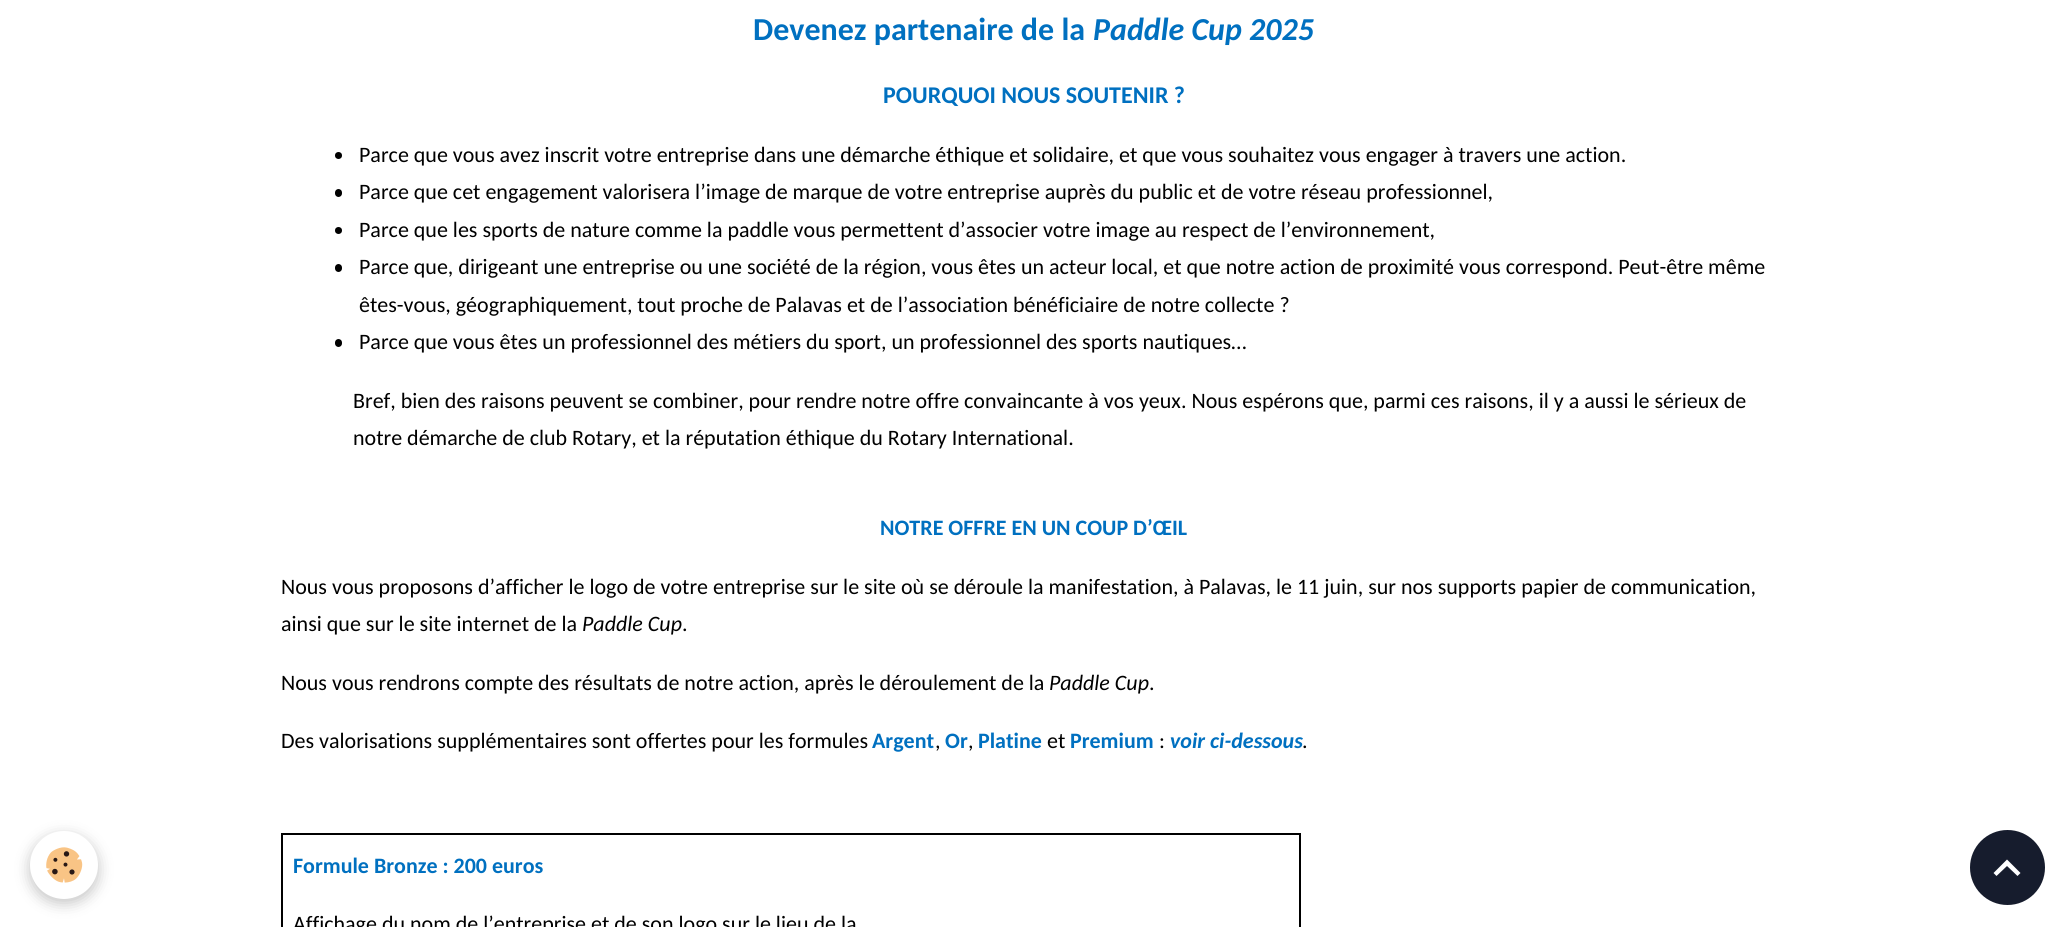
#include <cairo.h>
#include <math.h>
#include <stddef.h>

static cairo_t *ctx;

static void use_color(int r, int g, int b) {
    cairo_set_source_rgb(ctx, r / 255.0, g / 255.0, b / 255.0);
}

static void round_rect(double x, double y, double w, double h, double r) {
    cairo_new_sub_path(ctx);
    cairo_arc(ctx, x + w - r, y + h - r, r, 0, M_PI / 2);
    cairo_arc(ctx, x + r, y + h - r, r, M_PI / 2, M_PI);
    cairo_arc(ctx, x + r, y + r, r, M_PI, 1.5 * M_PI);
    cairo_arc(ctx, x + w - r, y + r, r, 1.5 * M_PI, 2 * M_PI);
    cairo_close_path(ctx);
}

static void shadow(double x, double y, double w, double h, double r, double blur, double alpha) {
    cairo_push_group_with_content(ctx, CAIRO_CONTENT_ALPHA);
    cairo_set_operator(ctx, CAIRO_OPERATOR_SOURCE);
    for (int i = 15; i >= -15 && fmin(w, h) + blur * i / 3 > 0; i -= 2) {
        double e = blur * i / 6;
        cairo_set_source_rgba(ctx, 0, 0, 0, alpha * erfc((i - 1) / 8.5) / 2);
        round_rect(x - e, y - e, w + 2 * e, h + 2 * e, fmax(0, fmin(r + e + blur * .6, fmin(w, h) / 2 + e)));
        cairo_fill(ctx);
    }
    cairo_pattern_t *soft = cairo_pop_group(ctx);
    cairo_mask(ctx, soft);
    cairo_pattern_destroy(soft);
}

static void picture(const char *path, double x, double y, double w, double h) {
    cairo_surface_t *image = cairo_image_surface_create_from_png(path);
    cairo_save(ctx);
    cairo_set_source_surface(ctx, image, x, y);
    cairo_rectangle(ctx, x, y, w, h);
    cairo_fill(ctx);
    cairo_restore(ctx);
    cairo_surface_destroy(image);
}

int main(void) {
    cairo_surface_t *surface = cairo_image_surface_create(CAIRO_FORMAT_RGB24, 2066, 927);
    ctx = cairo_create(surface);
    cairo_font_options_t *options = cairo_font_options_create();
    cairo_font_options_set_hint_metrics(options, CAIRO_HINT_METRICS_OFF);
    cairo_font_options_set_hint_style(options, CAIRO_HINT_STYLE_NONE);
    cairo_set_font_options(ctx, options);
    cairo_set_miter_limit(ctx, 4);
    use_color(255, 255, 255);
    cairo_paint(ctx);
    use_color(0, 0, 0);
    shadow(30, 836, 68, 67, 33.5, 7.5, 0.24);
    use_color(255, 255, 255);
    cairo_arc(ctx, 64, 865, 34, 0, 2 * M_PI);
    cairo_fill(ctx);
    picture("img1.png", 46, 847, 37, 36);
    cairo_select_font_face(ctx, "Carlito", CAIRO_FONT_SLANT_NORMAL, CAIRO_FONT_WEIGHT_BOLD);
    cairo_set_font_size(ctx, 32);
    use_color(0, 112, 192);
    cairo_move_to(ctx, 753, 40);
    cairo_show_text(ctx, "Devenez partenaire de la");
    cairo_select_font_face(ctx, "Carlito", CAIRO_FONT_SLANT_ITALIC, CAIRO_FONT_WEIGHT_BOLD);
    cairo_move_to(ctx, 1093, 40);
    cairo_show_text(ctx, "Paddle Cup 2025");
    cairo_select_font_face(ctx, "Carlito", CAIRO_FONT_SLANT_NORMAL, CAIRO_FONT_WEIGHT_BOLD);
    cairo_set_font_size(ctx, 24);
    cairo_move_to(ctx, 883, 103);
    cairo_show_text(ctx, "POURQUOI NOUS SOUTENIR ?");
    use_color(0, 0, 0);
    cairo_new_path(ctx);
    cairo_arc(ctx, 338.5, 155.5, 3.5, 0, 2 * M_PI);
    cairo_fill(ctx);
    cairo_select_font_face(ctx, "Carlito", CAIRO_FONT_SLANT_NORMAL, CAIRO_FONT_WEIGHT_NORMAL);
    cairo_set_font_size(ctx, 22);
    cairo_move_to(ctx, 359, 162);
    cairo_show_text(ctx, "Parce que vous avez inscrit votre entreprise dans une démarche éthique et solidaire, et que vous souhaitez vous engager à travers une action.");
    round_rect(335, 189, 7, 8, 3.5);
    cairo_fill(ctx);
    cairo_move_to(ctx, 359, 199);
    cairo_show_text(ctx, "Parce que cet engagement valorisera l’image de marque de votre entreprise auprès du public et de votre réseau professionnel,");
    cairo_new_path(ctx);
    cairo_arc(ctx, 338.5, 230.5, 3.5, 0, 2 * M_PI);
    cairo_fill(ctx);
    cairo_move_to(ctx, 359, 237);
    cairo_show_text(ctx, "Parce que les sports de nature comme la paddle vous permettent d’associer votre image au respect de l’environnement,");
    round_rect(335, 264, 7, 8, 3.5);
    cairo_fill(ctx);
    cairo_move_to(ctx, 359, 274);
    cairo_show_text(ctx, "Parce que, dirigeant une entreprise ou une société de la région, vous êtes un acteur local, et que notre action de proximité vous correspond. Peut-être même");
    cairo_move_to(ctx, 359, 312);
    cairo_show_text(ctx, "êtes-vous, géographiquement, tout proche de Palavas et de l’association bénéficiaire de notre collecte ?");
    round_rect(335, 339, 7, 8, 3.5);
    cairo_fill(ctx);
    cairo_move_to(ctx, 359, 349);
    cairo_show_text(ctx, "Parce que vous êtes un professionnel des métiers du sport, un professionnel des sports nautiques…");
    cairo_move_to(ctx, 353, 408);
    cairo_show_text(ctx, "Bref, bien des raisons peuvent se combiner, pour rendre notre offre convaincante à vos yeux. Nous espérons que, parmi ces raisons, il y a aussi le sérieux de");
    cairo_move_to(ctx, 353, 445);
    cairo_show_text(ctx, "notre démarche de club Rotary, et la réputation éthique du Rotary International.");
    cairo_select_font_face(ctx, "Carlito", CAIRO_FONT_SLANT_NORMAL, CAIRO_FONT_WEIGHT_BOLD);
    use_color(0, 112, 192);
    cairo_move_to(ctx, 880, 535);
    cairo_show_text(ctx, "NOTRE OFFRE EN UN COUP D’ŒIL");
    cairo_select_font_face(ctx, "Carlito", CAIRO_FONT_SLANT_NORMAL, CAIRO_FONT_WEIGHT_NORMAL);
    use_color(0, 0, 0);
    cairo_move_to(ctx, 281, 594);
    cairo_show_text(ctx, "Nous vous proposons d’afficher le logo de votre entreprise sur le site où se déroule la manifestation, à Palavas, le 11 juin, sur nos supports papier de communication,");
    cairo_move_to(ctx, 281, 631);
    cairo_show_text(ctx, "ainsi que sur le site internet de la");
    cairo_select_font_face(ctx, "Carlito", CAIRO_FONT_SLANT_ITALIC, CAIRO_FONT_WEIGHT_NORMAL);
    cairo_move_to(ctx, 582, 631);
    cairo_show_text(ctx, "Paddle Cup");
    cairo_select_font_face(ctx, "Carlito", CAIRO_FONT_SLANT_NORMAL, CAIRO_FONT_WEIGHT_NORMAL);
    cairo_move_to(ctx, 682, 631);
    cairo_show_text(ctx, ".");
    cairo_move_to(ctx, 281, 690);
    cairo_show_text(ctx, "Nous vous rendrons compte des résultats de notre action, après le déroulement de la");
    cairo_select_font_face(ctx, "Carlito", CAIRO_FONT_SLANT_ITALIC, CAIRO_FONT_WEIGHT_NORMAL);
    cairo_move_to(ctx, 1049, 690);
    cairo_show_text(ctx, "Paddle Cup");
    cairo_select_font_face(ctx, "Carlito", CAIRO_FONT_SLANT_NORMAL, CAIRO_FONT_WEIGHT_NORMAL);
    cairo_move_to(ctx, 1149, 690);
    cairo_show_text(ctx, ".");
    cairo_move_to(ctx, 281, 748);
    cairo_show_text(ctx, "Des valorisations supplémentaires sont offertes pour les formules");
    cairo_select_font_face(ctx, "Carlito", CAIRO_FONT_SLANT_NORMAL, CAIRO_FONT_WEIGHT_BOLD);
    use_color(0, 112, 192);
    cairo_move_to(ctx, 872, 748);
    cairo_show_text(ctx, "Argent");
    cairo_select_font_face(ctx, "Carlito", CAIRO_FONT_SLANT_NORMAL, CAIRO_FONT_WEIGHT_NORMAL);
    use_color(0, 0, 0);
    cairo_move_to(ctx, 935, 748);
    cairo_show_text(ctx, ",");
    cairo_select_font_face(ctx, "Carlito", CAIRO_FONT_SLANT_NORMAL, CAIRO_FONT_WEIGHT_BOLD);
    use_color(0, 112, 192);
    cairo_move_to(ctx, 945, 748);
    cairo_show_text(ctx, "Or");
    cairo_select_font_face(ctx, "Carlito", CAIRO_FONT_SLANT_NORMAL, CAIRO_FONT_WEIGHT_NORMAL);
    use_color(0, 0, 0);
    cairo_move_to(ctx, 968, 748);
    cairo_show_text(ctx, ",");
    cairo_select_font_face(ctx, "Carlito", CAIRO_FONT_SLANT_NORMAL, CAIRO_FONT_WEIGHT_BOLD);
    use_color(0, 112, 192);
    cairo_move_to(ctx, 978, 748);
    cairo_show_text(ctx, "Platine");
    cairo_select_font_face(ctx, "Carlito", CAIRO_FONT_SLANT_NORMAL, CAIRO_FONT_WEIGHT_NORMAL);
    use_color(0, 0, 0);
    cairo_move_to(ctx, 1047, 748);
    cairo_show_text(ctx, "et");
    cairo_select_font_face(ctx, "Carlito", CAIRO_FONT_SLANT_NORMAL, CAIRO_FONT_WEIGHT_BOLD);
    use_color(0, 112, 192);
    cairo_move_to(ctx, 1070, 748);
    cairo_show_text(ctx, "Premium");
    cairo_select_font_face(ctx, "Carlito", CAIRO_FONT_SLANT_NORMAL, CAIRO_FONT_WEIGHT_NORMAL);
    use_color(0, 0, 0);
    cairo_move_to(ctx, 1159, 748);
    cairo_show_text(ctx, ":");
    cairo_select_font_face(ctx, "Carlito", CAIRO_FONT_SLANT_ITALIC, CAIRO_FONT_WEIGHT_BOLD);
    use_color(0, 112, 192);
    cairo_move_to(ctx, 1170, 748);
    cairo_show_text(ctx, "voir ci-dessous");
    cairo_select_font_face(ctx, "Carlito", CAIRO_FONT_SLANT_NORMAL, CAIRO_FONT_WEIGHT_NORMAL);
    use_color(0, 0, 0);
    cairo_move_to(ctx, 1302, 748);
    cairo_show_text(ctx, ".");
    cairo_rectangle(ctx, 281, 833, 1020, 2);
    cairo_fill(ctx);
    cairo_rectangle(ctx, 1299, 833, 2, 94);
    cairo_fill(ctx);
    cairo_rectangle(ctx, 281, 833, 2, 94);
    cairo_fill(ctx);
    cairo_select_font_face(ctx, "Carlito", CAIRO_FONT_SLANT_NORMAL, CAIRO_FONT_WEIGHT_BOLD);
    use_color(0, 112, 192);
    cairo_move_to(ctx, 293, 873);
    cairo_show_text(ctx, "Formule Bronze : 200 euros");
    cairo_select_font_face(ctx, "Carlito", CAIRO_FONT_SLANT_NORMAL, CAIRO_FONT_WEIGHT_NORMAL);
    use_color(0, 0, 0);
    cairo_move_to(ctx, 293, 931);
    cairo_show_text(ctx, "Affichage du nom de l’entreprise et de son logo sur le lieu de la");
    use_color(22, 28, 45);
    cairo_new_path(ctx);
    cairo_arc(ctx, 2007.5, 867.5, 37.5, 0, 2 * M_PI);
    cairo_fill(ctx);
    use_color(255, 255, 255);
    cairo_new_path(ctx);
    cairo_move_to(ctx, 2007, 859.5);
    cairo_line_to(ctx, 2020.5, 873);
    cairo_line_to(ctx, 2017.5, 876);
    cairo_line_to(ctx, 2007, 866);
    cairo_line_to(ctx, 1996.5, 876);
    cairo_line_to(ctx, 1993.5, 873);
    cairo_close_path(ctx);
    cairo_fill(ctx);
    cairo_surface_write_to_png(surface, "result.png");
    cairo_font_options_destroy(options);
    cairo_destroy(ctx);
    cairo_surface_destroy(surface);
    return 0;
}
